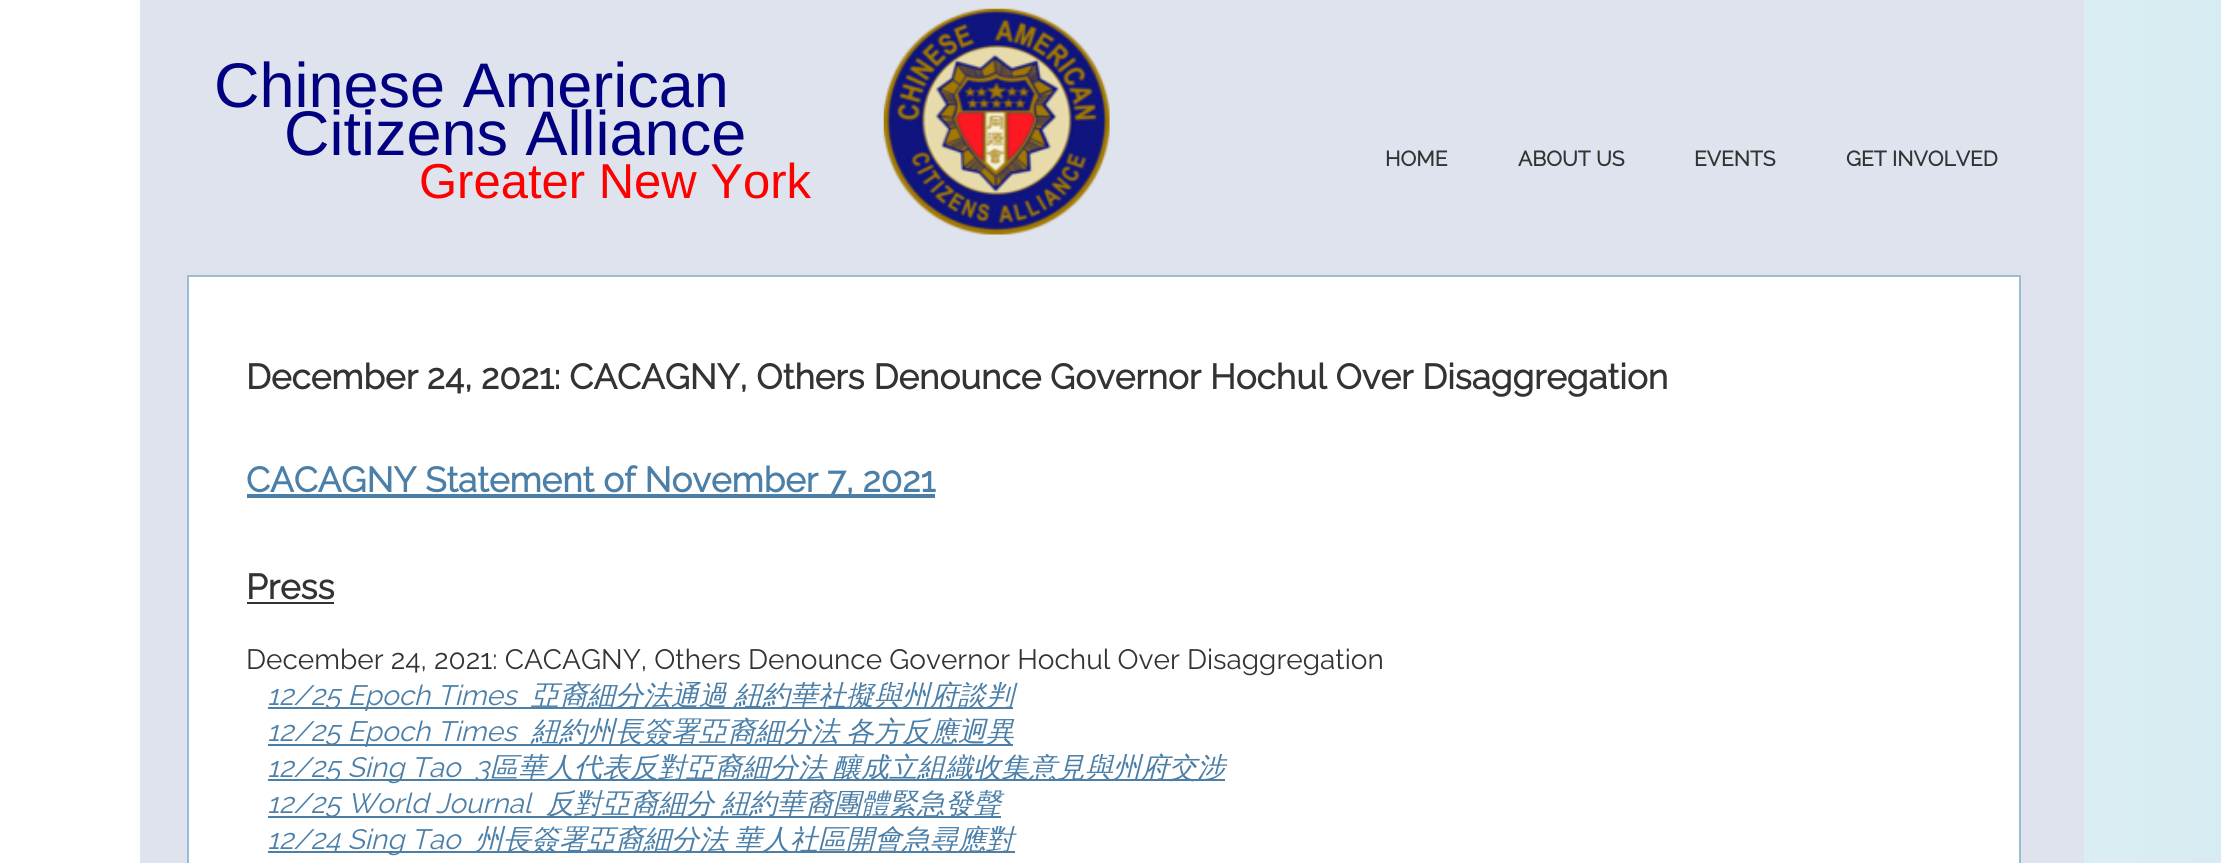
#include <cairo.h>
#include <math.h>
#include <stddef.h>

static cairo_t *ctx;

static void use_color(int r, int g, int b) {
    cairo_set_source_rgb(ctx, r / 255.0, g / 255.0, b / 255.0);
}

static void picture(const char *path, double x, double y, double w, double h) {
    cairo_surface_t *image = cairo_image_surface_create_from_png(path);
    cairo_save(ctx);
    cairo_set_source_surface(ctx, image, x, y);
    cairo_rectangle(ctx, x, y, w, h);
    cairo_fill(ctx);
    cairo_restore(ctx);
    cairo_surface_destroy(image);
}

int main(void) {
    cairo_surface_t *surface = cairo_image_surface_create(CAIRO_FORMAT_RGB24, 2221, 863);
    ctx = cairo_create(surface);
    cairo_font_options_t *options = cairo_font_options_create();
    cairo_font_options_set_hint_metrics(options, CAIRO_HINT_METRICS_OFF);
    cairo_font_options_set_hint_style(options, CAIRO_HINT_STYLE_NONE);
    cairo_set_font_options(ctx, options);
    cairo_set_miter_limit(ctx, 4);
    cairo_pattern_t *gradient;
    use_color(255, 255, 255);
    cairo_paint(ctx);
    gradient = cairo_pattern_create_linear(0, 432, 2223, 432);
    cairo_pattern_add_color_stop_rgba(gradient, 0, 1, 1, 1, 1);
    cairo_pattern_add_color_stop_rgba(gradient, 1, 0.843, 0.925, 0.949, 1);
    cairo_set_source(ctx, gradient);
    cairo_pattern_destroy(gradient);
    cairo_rectangle(ctx, 139, 0, 2082, 863);
    cairo_fill(ctx);
    use_color(223, 227, 238);
    cairo_rectangle(ctx, 140, 0, 1944, 863);
    cairo_fill(ctx);
    cairo_select_font_face(ctx, "Liberation Sans", CAIRO_FONT_SLANT_NORMAL, CAIRO_FONT_WEIGHT_NORMAL);
    cairo_set_font_size(ctx, 63);
    use_color(0, 0, 128);
    cairo_move_to(ctx, 214, 107);
    cairo_show_text(ctx, "Chinese American");
    cairo_move_to(ctx, 284, 155);
    cairo_show_text(ctx, "Citizens Alliance");
    cairo_set_font_size(ctx, 49);
    use_color(255, 0, 0);
    cairo_move_to(ctx, 419, 198);
    cairo_show_text(ctx, "Greater New York");
    picture("img1.png", 883, 8, 227, 227);
    cairo_select_font_face(ctx, "Raleway", CAIRO_FONT_SLANT_NORMAL, CAIRO_FONT_WEIGHT_BOLD);
    cairo_set_font_size(ctx, 21);
    use_color(51, 51, 51);
    cairo_move_to(ctx, 1385, 166);
    cairo_show_text(ctx, "HOME");
    cairo_move_to(ctx, 1518, 166);
    cairo_show_text(ctx, "ABOUT US");
    cairo_move_to(ctx, 1694, 166);
    cairo_show_text(ctx, "EVENTS");
    cairo_move_to(ctx, 1846, 166);
    cairo_show_text(ctx, "GET INVOLVED");
    use_color(255, 255, 255);
    cairo_rectangle(ctx, 188, 276, 1832, 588);
    cairo_fill_preserve(ctx);
    use_color(154, 189, 211);
    cairo_stroke(ctx);
    cairo_set_font_size(ctx, 35);
    use_color(51, 51, 51);
    cairo_move_to(ctx, 246, 389);
    cairo_show_text(ctx, "December 24, 2021: CACAGNY, Others Denounce Governor Hochul Over Disaggregation");
    use_color(75, 127, 168);
    cairo_rectangle(ctx, 247, 494, 688, 4);
    cairo_fill(ctx);
    cairo_move_to(ctx, 246, 492);
    cairo_show_text(ctx, "CACAGNY Statement of November 7, 2021");
    use_color(51, 51, 51);
    cairo_move_to(ctx, 246, 599);
    cairo_show_text(ctx, "Press");
    cairo_rectangle(ctx, 247, 602, 87, 2);
    cairo_fill(ctx);
    cairo_select_font_face(ctx, "Raleway Thin", CAIRO_FONT_SLANT_NORMAL, CAIRO_FONT_WEIGHT_NORMAL);
    cairo_set_font_size(ctx, 28);
    cairo_move_to(ctx, 246, 669);
    cairo_show_text(ctx, "December 24, 2021: CACAGNY, Others Denounce Governor Hochul Over Disaggregation");
    use_color(75, 127, 168);
    cairo_rectangle(ctx, 268, 707, 745, 2);
    cairo_fill(ctx);
    cairo_select_font_face(ctx, "Raleway Thin", CAIRO_FONT_SLANT_ITALIC, CAIRO_FONT_WEIGHT_NORMAL);
    cairo_move_to(ctx, 267, 705);
    cairo_show_text(ctx, "12/25 Epoch Times");
    cairo_select_font_face(ctx, "WenQuanYi Zen Hei Medium", CAIRO_FONT_SLANT_ITALIC, CAIRO_FONT_WEIGHT_NORMAL);
    cairo_move_to(ctx, 531, 705);
    cairo_show_text(ctx, "亞裔細分法通過");
    cairo_move_to(ctx, 734, 705);
    cairo_show_text(ctx, "紐約華社擬與州府談判");
    cairo_rectangle(ctx, 268, 744, 745, 2);
    cairo_fill(ctx);
    cairo_select_font_face(ctx, "Raleway Thin", CAIRO_FONT_SLANT_ITALIC, CAIRO_FONT_WEIGHT_NORMAL);
    cairo_move_to(ctx, 267, 741);
    cairo_show_text(ctx, "12/25 Epoch Times");
    cairo_select_font_face(ctx, "WenQuanYi Zen Hei Medium", CAIRO_FONT_SLANT_ITALIC, CAIRO_FONT_WEIGHT_NORMAL);
    cairo_move_to(ctx, 531, 741);
    cairo_show_text(ctx, "紐約州長簽署亞裔細分法");
    cairo_move_to(ctx, 846, 741);
    cairo_show_text(ctx, "各方反應迥異");
    cairo_rectangle(ctx, 268, 779, 957, 2);
    cairo_fill(ctx);
    cairo_select_font_face(ctx, "Raleway Thin", CAIRO_FONT_SLANT_ITALIC, CAIRO_FONT_WEIGHT_NORMAL);
    cairo_move_to(ctx, 267, 777);
    cairo_show_text(ctx, "12/25 Sing Tao  3");
    cairo_select_font_face(ctx, "WenQuanYi Zen Hei Medium", CAIRO_FONT_SLANT_ITALIC, CAIRO_FONT_WEIGHT_NORMAL);
    cairo_move_to(ctx, 490, 777);
    cairo_show_text(ctx, "區華人代表反對亞裔細分法");
    cairo_move_to(ctx, 833, 777);
    cairo_show_text(ctx, "釀成立組織收集意見與州府交涉");
    cairo_rectangle(ctx, 268, 816, 733, 2);
    cairo_fill(ctx);
    cairo_select_font_face(ctx, "Raleway Thin", CAIRO_FONT_SLANT_ITALIC, CAIRO_FONT_WEIGHT_NORMAL);
    cairo_move_to(ctx, 267, 813);
    cairo_show_text(ctx, "12/25 World Journal");
    cairo_select_font_face(ctx, "WenQuanYi Zen Hei Medium", CAIRO_FONT_SLANT_ITALIC, CAIRO_FONT_WEIGHT_NORMAL);
    cairo_move_to(ctx, 546, 813);
    cairo_show_text(ctx, "反對亞裔細分");
    cairo_move_to(ctx, 721, 813);
    cairo_show_text(ctx, "紐約華裔團體緊急發聲");
    cairo_rectangle(ctx, 268, 851, 747, 2);
    cairo_fill(ctx);
    cairo_select_font_face(ctx, "Raleway Thin", CAIRO_FONT_SLANT_ITALIC, CAIRO_FONT_WEIGHT_NORMAL);
    cairo_move_to(ctx, 267, 849);
    cairo_show_text(ctx, "12/24 Sing Tao");
    cairo_select_font_face(ctx, "WenQuanYi Zen Hei Medium", CAIRO_FONT_SLANT_ITALIC, CAIRO_FONT_WEIGHT_NORMAL);
    cairo_move_to(ctx, 475, 849);
    cairo_show_text(ctx, "州長簽署亞裔細分法");
    cairo_move_to(ctx, 734, 849);
    cairo_show_text(ctx, "華人社區開會急尋應對");
    cairo_surface_write_to_png(surface, "result.png");
    cairo_font_options_destroy(options);
    cairo_destroy(ctx);
    cairo_surface_destroy(surface);
    return 0;
}
